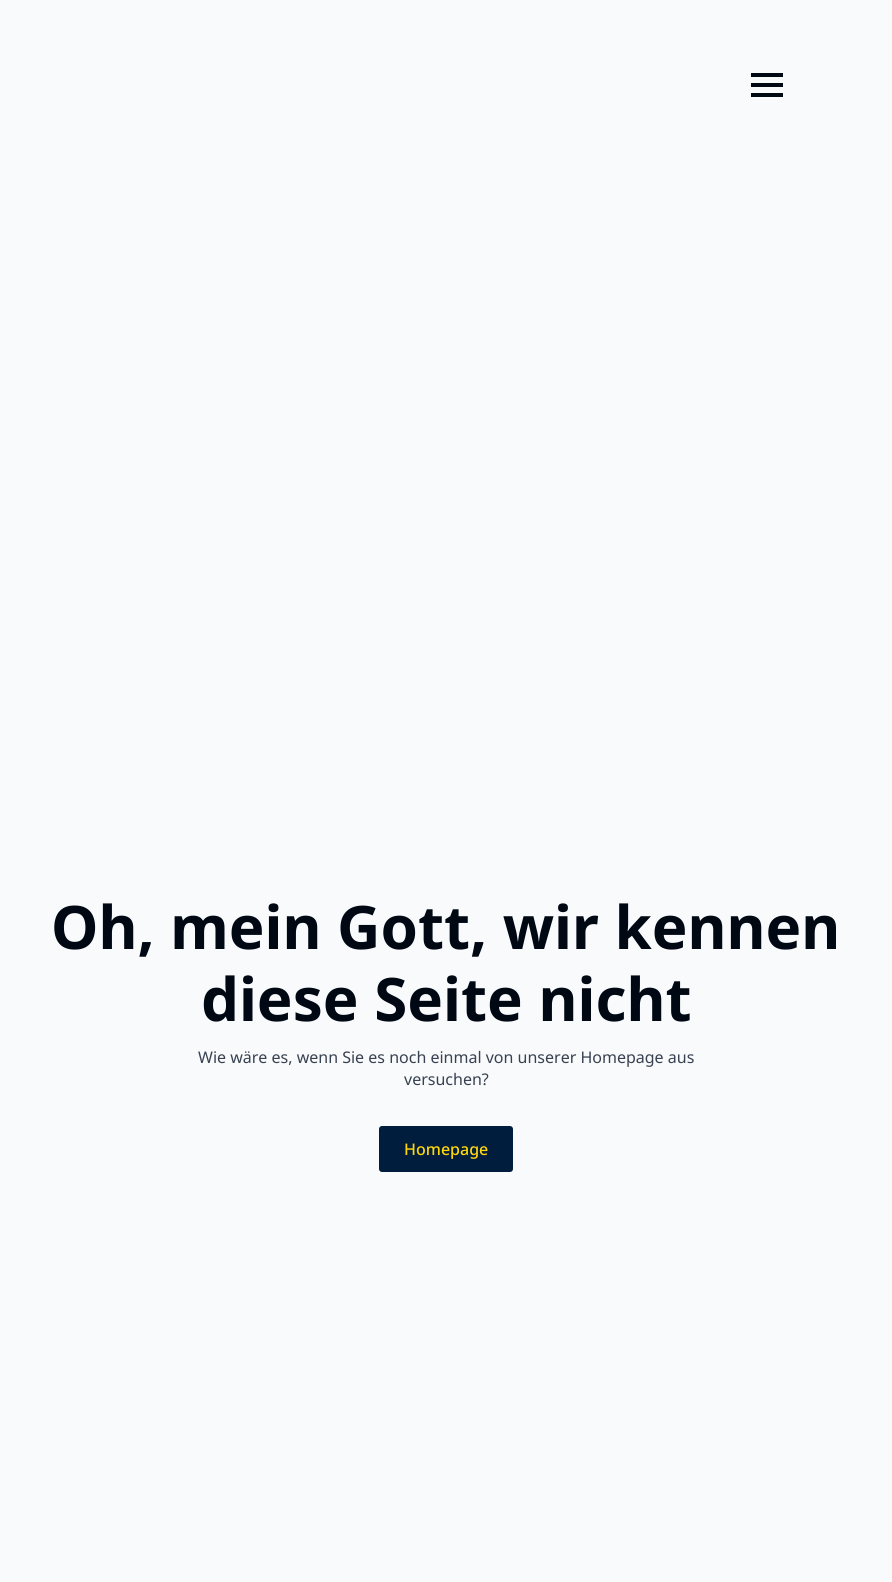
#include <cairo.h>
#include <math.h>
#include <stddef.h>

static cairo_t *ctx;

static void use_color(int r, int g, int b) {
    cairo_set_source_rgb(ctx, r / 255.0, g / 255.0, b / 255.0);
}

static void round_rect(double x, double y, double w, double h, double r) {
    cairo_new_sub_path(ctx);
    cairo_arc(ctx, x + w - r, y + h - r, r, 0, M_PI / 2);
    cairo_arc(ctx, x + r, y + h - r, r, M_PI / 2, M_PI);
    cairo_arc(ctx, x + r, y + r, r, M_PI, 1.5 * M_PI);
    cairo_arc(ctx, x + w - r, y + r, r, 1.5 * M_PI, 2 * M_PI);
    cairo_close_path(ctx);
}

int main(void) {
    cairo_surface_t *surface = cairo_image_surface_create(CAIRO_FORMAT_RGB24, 892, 1582);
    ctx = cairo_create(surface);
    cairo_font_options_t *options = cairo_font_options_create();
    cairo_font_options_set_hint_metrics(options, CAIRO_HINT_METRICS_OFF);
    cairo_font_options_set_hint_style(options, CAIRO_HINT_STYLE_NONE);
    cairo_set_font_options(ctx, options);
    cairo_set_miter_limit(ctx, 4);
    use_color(249, 250, 251);
    cairo_paint(ctx);
    use_color(0, 8, 20);
    cairo_rectangle(ctx, 751, 83, 32, 4);
    cairo_fill(ctx);
    cairo_rectangle(ctx, 751, 73, 32, 4);
    cairo_fill(ctx);
    cairo_rectangle(ctx, 751, 93, 32, 4);
    cairo_fill(ctx);
    cairo_select_font_face(ctx, "Noto Sans", CAIRO_FONT_SLANT_NORMAL, CAIRO_FONT_WEIGHT_BOLD);
    cairo_set_font_size(ctx, 60);
    cairo_move_to(ctx, 51, 949);
    cairo_show_text(ctx, "Oh, mein Gott, wir kennen");
    cairo_move_to(ctx, 201, 1021);
    cairo_show_text(ctx, "diese Seite nicht");
    cairo_select_font_face(ctx, "Noto Sans", CAIRO_FONT_SLANT_NORMAL, CAIRO_FONT_WEIGHT_NORMAL);
    cairo_set_font_size(ctx, 16);
    use_color(55, 65, 81);
    cairo_move_to(ctx, 198, 1063);
    cairo_show_text(ctx, "Wie wäre es, wenn Sie es noch einmal von unserer Homepage aus");
    cairo_move_to(ctx, 404, 1085);
    cairo_show_text(ctx, "versuchen?");
    use_color(0, 29, 61);
    round_rect(379, 1126, 134, 46, 3);
    cairo_fill(ctx);
    cairo_select_font_face(ctx, "Noto Sans Medium", CAIRO_FONT_SLANT_NORMAL, CAIRO_FONT_WEIGHT_NORMAL);
    use_color(255, 214, 10);
    cairo_move_to(ctx, 404, 1155);
    cairo_show_text(ctx, "Homepage");
    cairo_surface_write_to_png(surface, "result.png");
    cairo_font_options_destroy(options);
    cairo_destroy(ctx);
    cairo_surface_destroy(surface);
    return 0;
}
